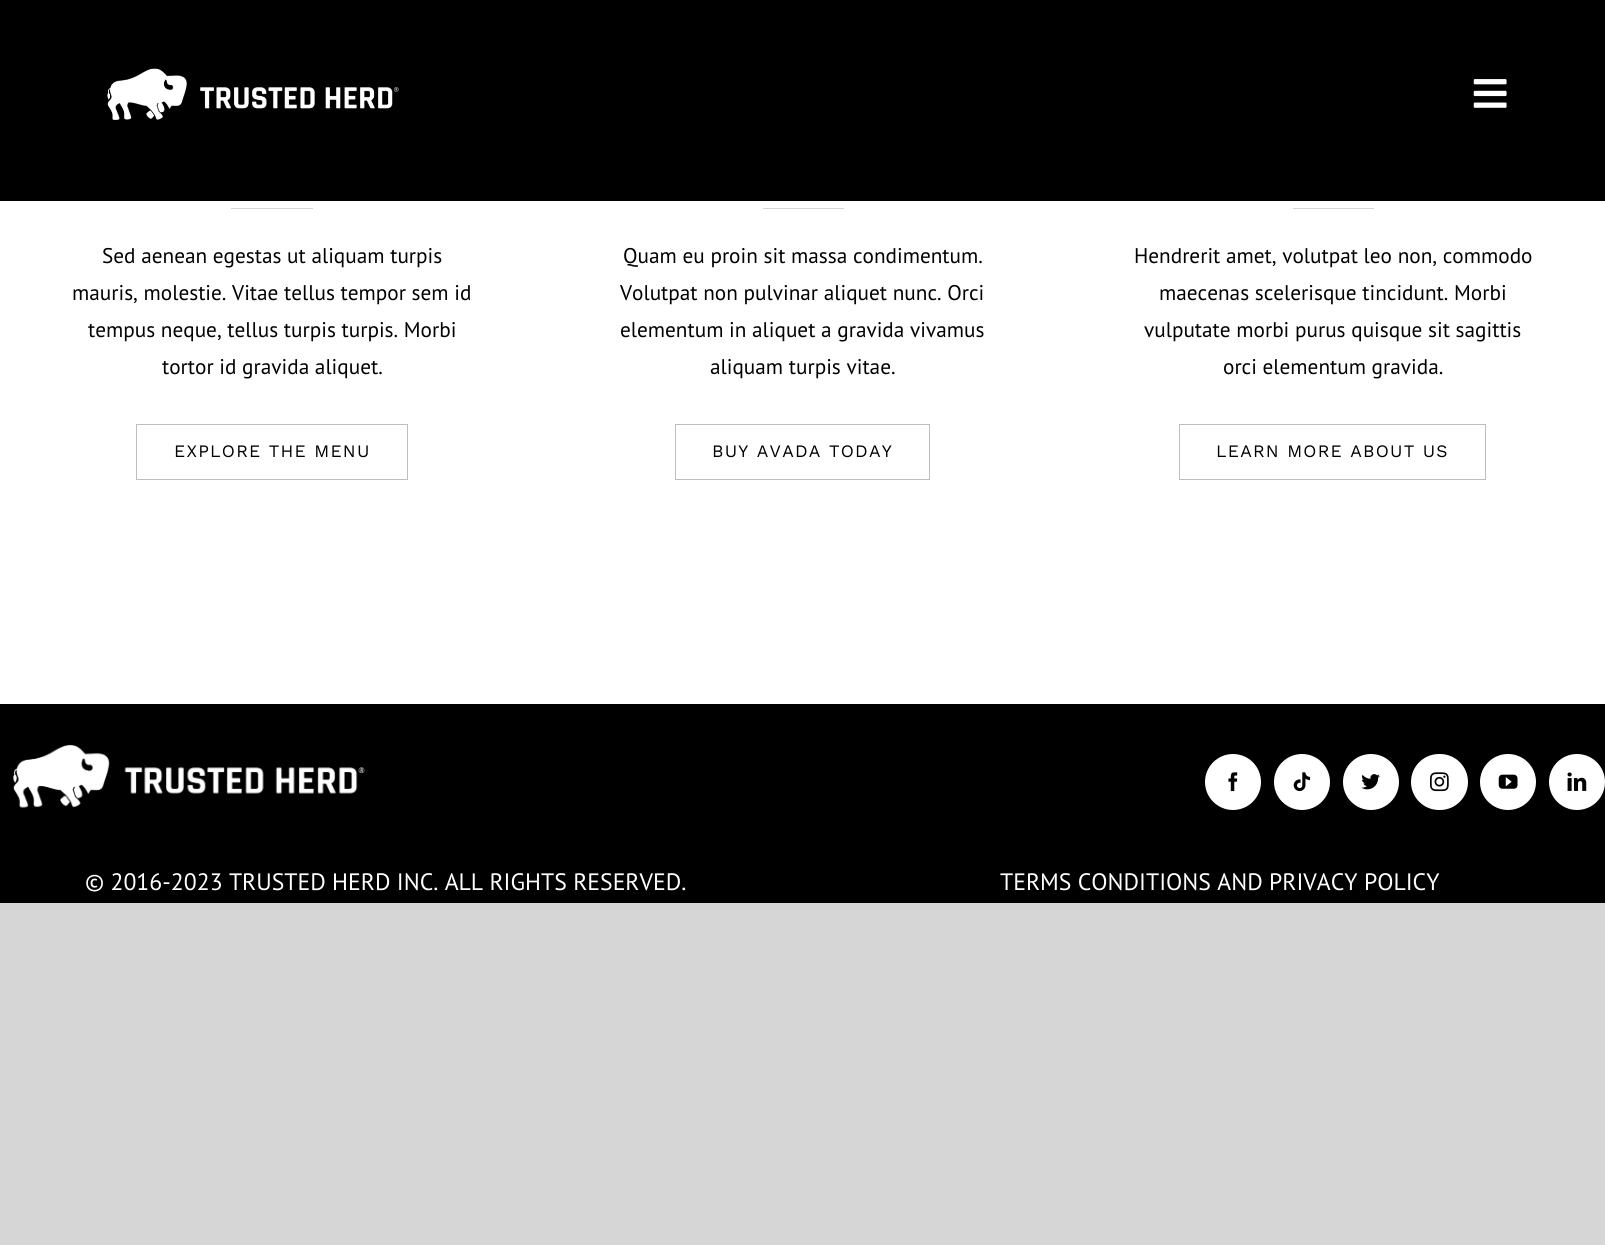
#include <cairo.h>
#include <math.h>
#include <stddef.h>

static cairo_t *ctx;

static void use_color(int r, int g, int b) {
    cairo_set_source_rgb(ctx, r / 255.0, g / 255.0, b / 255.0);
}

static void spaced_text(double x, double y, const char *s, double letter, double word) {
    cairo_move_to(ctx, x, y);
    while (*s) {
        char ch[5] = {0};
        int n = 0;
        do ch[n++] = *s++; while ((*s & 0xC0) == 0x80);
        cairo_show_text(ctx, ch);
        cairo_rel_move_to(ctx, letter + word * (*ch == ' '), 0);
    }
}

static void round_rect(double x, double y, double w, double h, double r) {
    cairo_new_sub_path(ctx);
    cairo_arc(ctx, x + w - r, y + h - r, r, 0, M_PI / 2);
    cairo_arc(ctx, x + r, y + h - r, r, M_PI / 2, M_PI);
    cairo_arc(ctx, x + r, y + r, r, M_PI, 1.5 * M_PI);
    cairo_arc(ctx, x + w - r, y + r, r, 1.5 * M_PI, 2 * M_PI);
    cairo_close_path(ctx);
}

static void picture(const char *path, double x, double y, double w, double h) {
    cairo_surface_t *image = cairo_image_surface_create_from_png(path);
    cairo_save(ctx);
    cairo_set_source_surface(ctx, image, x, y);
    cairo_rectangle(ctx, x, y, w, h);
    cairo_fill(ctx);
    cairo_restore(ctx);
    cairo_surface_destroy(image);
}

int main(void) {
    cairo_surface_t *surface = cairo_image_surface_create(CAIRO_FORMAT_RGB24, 1605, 1245);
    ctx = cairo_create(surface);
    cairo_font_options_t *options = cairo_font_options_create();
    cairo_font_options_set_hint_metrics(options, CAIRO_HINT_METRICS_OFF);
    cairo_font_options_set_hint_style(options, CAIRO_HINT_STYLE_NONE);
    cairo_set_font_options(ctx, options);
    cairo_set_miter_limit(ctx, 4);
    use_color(215, 214, 214);
    cairo_paint(ctx);
    use_color(255, 255, 255);
    cairo_rectangle(ctx, 0, 201, 1605, 503);
    cairo_fill(ctx);
    use_color(0, 0, 0);
    cairo_rectangle(ctx, 0, 0, 1605, 201);
    cairo_fill(ctx);
    picture("img1.png", 107, 68, 292, 53);
    picture("img2.png", 1473, 79, 34, 29);
    use_color(214, 214, 214);
    cairo_rectangle(ctx, 231, 208, 82, 1);
    cairo_fill(ctx);
    cairo_select_font_face(ctx, "PT Sans", CAIRO_FONT_SLANT_NORMAL, CAIRO_FONT_WEIGHT_NORMAL);
    cairo_set_font_size(ctx, 21.25);
    use_color(0, 0, 0);
    cairo_move_to(ctx, 102, 263);
    cairo_show_text(ctx, "Sed aenean egestas ut aliquam turpis");
    cairo_move_to(ctx, 72, 300);
    cairo_show_text(ctx, "mauris, molestie. Vitae tellus tempor sem id");
    cairo_move_to(ctx, 88, 337);
    cairo_show_text(ctx, "tempus neque, tellus turpis turpis. Morbi");
    cairo_move_to(ctx, 162, 374);
    cairo_show_text(ctx, "tortor id gravida aliquet.");
    cairo_rectangle(ctx, 136.5, 424.5, 271, 55);
    use_color(190, 189, 189);
    cairo_set_line_width(ctx, 1);
    cairo_stroke(ctx);
    cairo_select_font_face(ctx, "Work Sans", CAIRO_FONT_SLANT_NORMAL, CAIRO_FONT_WEIGHT_NORMAL);
    cairo_set_font_size(ctx, 17.5);
    use_color(0, 0, 0);
    spaced_text(174, 457, "EXPLORE THE MENU", 1.25, 0);
    use_color(214, 214, 214);
    cairo_rectangle(ctx, 763, 208, 81, 1);
    cairo_fill(ctx);
    cairo_select_font_face(ctx, "PT Sans", CAIRO_FONT_SLANT_NORMAL, CAIRO_FONT_WEIGHT_NORMAL);
    cairo_set_font_size(ctx, 21.25);
    use_color(0, 0, 0);
    cairo_move_to(ctx, 623, 263);
    cairo_show_text(ctx, "Quam eu proin sit massa condimentum.");
    cairo_move_to(ctx, 620, 300);
    cairo_show_text(ctx, "Volutpat non pulvinar aliquet nunc. Orci");
    cairo_move_to(ctx, 620, 337);
    cairo_show_text(ctx, "elementum in aliquet a gravida vivamus");
    cairo_move_to(ctx, 710, 374);
    cairo_show_text(ctx, "aliquam turpis vitae.");
    cairo_rectangle(ctx, 675.5, 424.5, 254, 55);
    use_color(190, 189, 189);
    cairo_stroke(ctx);
    cairo_select_font_face(ctx, "Work Sans", CAIRO_FONT_SLANT_NORMAL, CAIRO_FONT_WEIGHT_NORMAL);
    cairo_set_font_size(ctx, 17.5);
    use_color(0, 0, 0);
    spaced_text(712, 457, "BUY AVADA TODAY", 1.25, 0);
    use_color(214, 214, 214);
    cairo_rectangle(ctx, 1293, 208, 81, 1);
    cairo_fill(ctx);
    cairo_select_font_face(ctx, "PT Sans", CAIRO_FONT_SLANT_NORMAL, CAIRO_FONT_WEIGHT_NORMAL);
    cairo_set_font_size(ctx, 21.25);
    use_color(0, 0, 0);
    cairo_move_to(ctx, 1134, 263);
    cairo_show_text(ctx, "Hendrerit amet, volutpat leo non, commodo");
    cairo_move_to(ctx, 1159, 300);
    cairo_show_text(ctx, "maecenas scelerisque tincidunt. Morbi");
    cairo_move_to(ctx, 1144, 337);
    cairo_show_text(ctx, "vulputate morbi purus quisque sit sagittis");
    cairo_move_to(ctx, 1223, 374);
    cairo_show_text(ctx, "orci elementum gravida.");
    cairo_rectangle(ctx, 1179.5, 424.5, 306, 55);
    use_color(190, 189, 189);
    cairo_stroke(ctx);
    cairo_select_font_face(ctx, "Work Sans", CAIRO_FONT_SLANT_NORMAL, CAIRO_FONT_WEIGHT_NORMAL);
    cairo_set_font_size(ctx, 17.5);
    use_color(0, 0, 0);
    spaced_text(1216, 457, "LEARN MORE ABOUT US", 1.25, 0);
    cairo_rectangle(ctx, 0, 704, 1605, 199);
    cairo_fill(ctx);
    picture("img3.png", 13, 744, 352, 64);
    use_color(255, 255, 255);
    cairo_arc(ctx, 1233, 782, 28, 0, 2 * M_PI);
    cairo_fill(ctx);
    picture("img4.png", 1228, 772, 10, 20);
    cairo_arc(ctx, 1302, 782, 28, 0, 2 * M_PI);
    cairo_fill(ctx);
    picture("img5.png", 1293, 772, 18, 20);
    cairo_arc(ctx, 1371, 782, 28, 0, 2 * M_PI);
    cairo_fill(ctx);
    picture("img6.png", 1361, 774, 19, 16);
    round_rect(1411, 754, 57, 56, 28);
    cairo_fill(ctx);
    picture("img7.png", 1430, 772, 19, 20);
    cairo_arc(ctx, 1508, 782, 28, 0, 2 * M_PI);
    cairo_fill(ctx);
    picture("img8.png", 1498, 774, 20, 15);
    cairo_arc(ctx, 1577, 782, 28, 0, 2 * M_PI);
    cairo_fill(ctx);
    picture("img9.png", 1567, 772, 20, 19);
    cairo_select_font_face(ctx, "PT Sans", CAIRO_FONT_SLANT_NORMAL, CAIRO_FONT_WEIGHT_NORMAL);
    cairo_set_font_size(ctx, 23.75);
    cairo_move_to(ctx, 85, 890);
    cairo_show_text(ctx, "© 2016-2023 TRUSTED HERD INC. ALL RIGHTS RESERVED.");
    cairo_move_to(ctx, 1000, 890);
    cairo_show_text(ctx, "TERMS CONDITIONS AND PRIVACY POLICY");
    cairo_surface_write_to_png(surface, "result.png");
    cairo_font_options_destroy(options);
    cairo_destroy(ctx);
    cairo_surface_destroy(surface);
    return 0;
}
